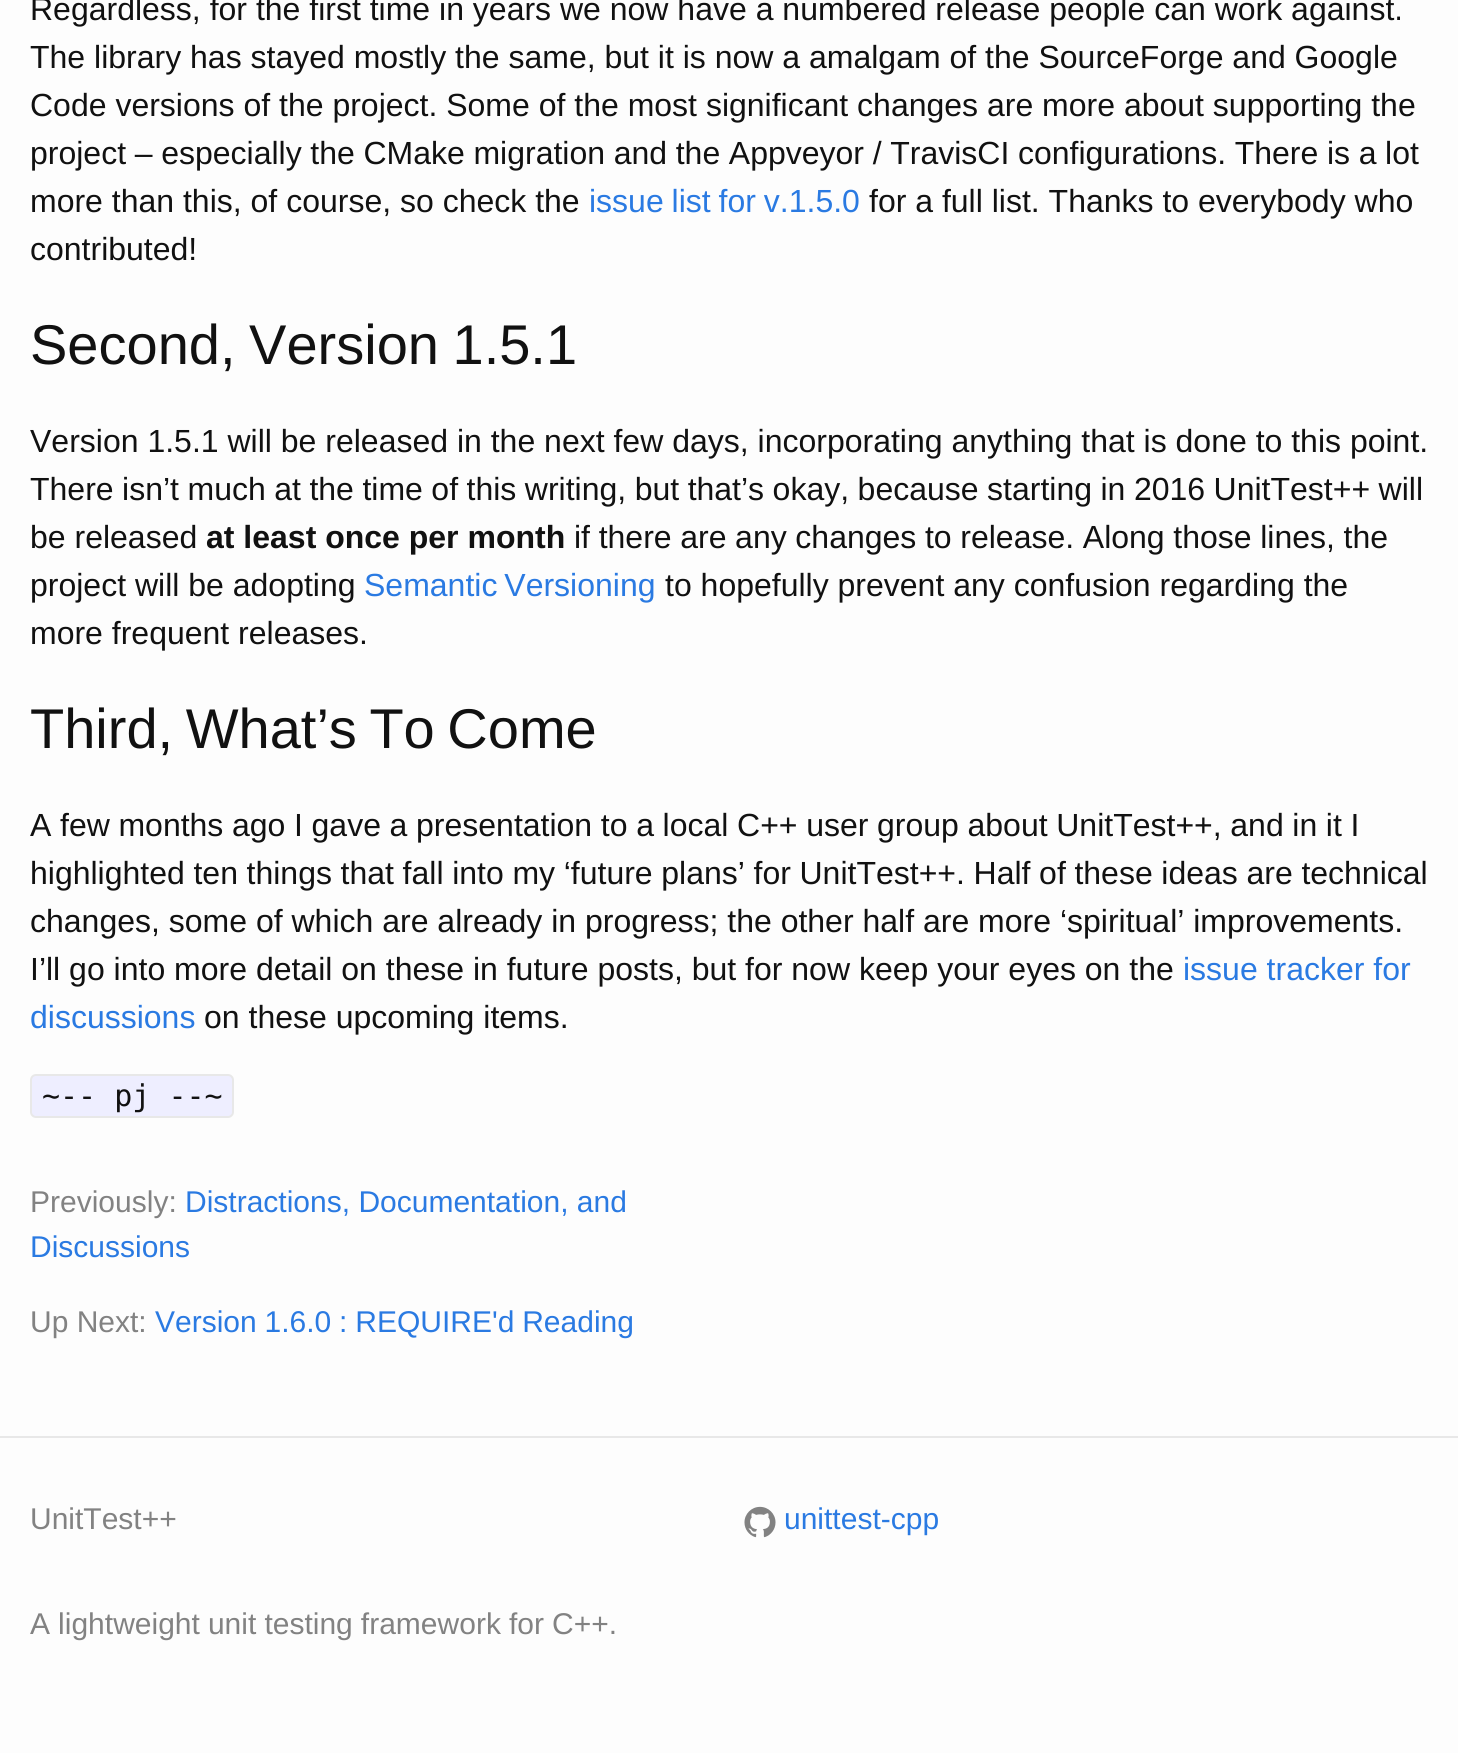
#include <cairo.h>
#include <math.h>
#include <stddef.h>

static cairo_t *ctx;

static void use_color(int r, int g, int b) {
    cairo_set_source_rgb(ctx, r / 255.0, g / 255.0, b / 255.0);
}

static void spaced_text(double x, double y, const char *s, double letter, double word) {
    cairo_move_to(ctx, x, y);
    while (*s) {
        char ch[5] = {0};
        int n = 0;
        do ch[n++] = *s++; while ((*s & 0xC0) == 0x80);
        cairo_show_text(ctx, ch);
        cairo_rel_move_to(ctx, letter + word * (*ch == ' '), 0);
    }
}

static void round_rect(double x, double y, double w, double h, double r) {
    cairo_new_sub_path(ctx);
    cairo_arc(ctx, x + w - r, y + h - r, r, 0, M_PI / 2);
    cairo_arc(ctx, x + r, y + h - r, r, M_PI / 2, M_PI);
    cairo_arc(ctx, x + r, y + r, r, M_PI, 1.5 * M_PI);
    cairo_arc(ctx, x + w - r, y + r, r, 1.5 * M_PI, 2 * M_PI);
    cairo_close_path(ctx);
}

static void picture(const char *path, double x, double y, double w, double h) {
    cairo_surface_t *image = cairo_image_surface_create_from_png(path);
    cairo_save(ctx);
    cairo_set_source_surface(ctx, image, x, y);
    cairo_rectangle(ctx, x, y, w, h);
    cairo_fill(ctx);
    cairo_restore(ctx);
    cairo_surface_destroy(image);
}

int main(void) {
    cairo_surface_t *surface = cairo_image_surface_create(CAIRO_FORMAT_RGB24, 1458, 1753);
    ctx = cairo_create(surface);
    cairo_font_options_t *options = cairo_font_options_create();
    cairo_font_options_set_hint_metrics(options, CAIRO_HINT_METRICS_OFF);
    cairo_font_options_set_hint_style(options, CAIRO_HINT_STYLE_NONE);
    cairo_set_font_options(ctx, options);
    cairo_set_miter_limit(ctx, 4);
    use_color(253, 253, 253);
    cairo_paint(ctx);
    cairo_select_font_face(ctx, "Liberation Sans", CAIRO_FONT_SLANT_NORMAL, CAIRO_FONT_WEIGHT_NORMAL);
    cairo_set_font_size(ctx, 32);
    use_color(17, 17, 17);
    cairo_move_to(ctx, 30, 20);
    cairo_show_text(ctx, "Regardless, for the first time in years we now have a numbered release people can work against.");
    cairo_move_to(ctx, 30, 68);
    cairo_show_text(ctx, "The library has stayed mostly the same, but it is now a amalgam of the SourceForge and Google");
    cairo_move_to(ctx, 30, 116);
    cairo_show_text(ctx, "Code versions of the project. Some of the most significant changes are more about supporting the");
    spaced_text(30, 164, "project – especially the CMake migration and the Appveyor / TravisCI configurations. There is a lot", 0, -0.25);
    cairo_move_to(ctx, 30, 212);
    cairo_show_text(ctx, "more than this, of course, so check the");
    use_color(42, 122, 226);
    spaced_text(589, 212, "issue list for v.1.5.0", 0, -1);
    use_color(17, 17, 17);
    cairo_move_to(ctx, 869, 212);
    cairo_show_text(ctx, "for a full list. Thanks to everybody who");
    cairo_move_to(ctx, 30, 260);
    cairo_show_text(ctx, "contributed!");
    cairo_set_font_size(ctx, 56);
    spaced_text(30, 364, "Second, Version 1.5.1", 0, -2);
    cairo_set_font_size(ctx, 32);
    cairo_move_to(ctx, 30, 452);
    cairo_show_text(ctx, "Version 1.5.1 will be released in the next few days, incorporating anything that is done to this point.");
    spaced_text(30, 500, "There isn’t much at the time of this writing, but that’s okay, because starting in 2016 UnitTest++ will", 0, -0.4);
    cairo_move_to(ctx, 30, 548);
    cairo_show_text(ctx, "be released");
    cairo_select_font_face(ctx, "Liberation Sans", CAIRO_FONT_SLANT_NORMAL, CAIRO_FONT_WEIGHT_BOLD);
    cairo_move_to(ctx, 206, 548);
    cairo_show_text(ctx, "at least once per month");
    cairo_select_font_face(ctx, "Liberation Sans", CAIRO_FONT_SLANT_NORMAL, CAIRO_FONT_WEIGHT_NORMAL);
    spaced_text(574, 548, "if there are any changes to release. Along those lines, the", 0, -0.25);
    cairo_move_to(ctx, 30, 596);
    cairo_show_text(ctx, "project will be adopting");
    use_color(42, 122, 226);
    spaced_text(364, 596, "Semantic Versioning", 0, -2);
    use_color(17, 17, 17);
    cairo_move_to(ctx, 665, 596);
    cairo_show_text(ctx, "to hopefully prevent any confusion regarding the");
    cairo_move_to(ctx, 30, 644);
    cairo_show_text(ctx, "more frequent releases.");
    cairo_set_font_size(ctx, 56);
    spaced_text(30, 748, "Third, What’s To Come", 0, -3);
    cairo_set_font_size(ctx, 32);
    spaced_text(30, 836, "A few months ago I gave a presentation to a local C++ user group about UnitTest++, and in it I", 0, -0.25);
    spaced_text(30, 884, "highlighted ten things that fall into my ‘future plans’ for UnitTest++. Half of these ideas are technical", 0, -0.25);
    cairo_move_to(ctx, 30, 932);
    cairo_show_text(ctx, "changes, some of which are already in progress; the other half are more ‘spiritual’ improvements.");
    cairo_move_to(ctx, 30, 980);
    cairo_show_text(ctx, "I’ll go into more detail on these in future posts, but for now keep your eyes on the");
    use_color(42, 122, 226);
    cairo_move_to(ctx, 1183, 980);
    cairo_show_text(ctx, "issue tracker for");
    cairo_move_to(ctx, 30, 1028);
    cairo_show_text(ctx, "discussions");
    use_color(17, 17, 17);
    cairo_move_to(ctx, 204, 1028);
    cairo_show_text(ctx, "on these upcoming items.");
    use_color(238, 238, 255);
    round_rect(31, 1075, 202, 42, 5);
    cairo_fill_preserve(ctx);
    use_color(232, 232, 232);
    cairo_stroke(ctx);
    cairo_select_font_face(ctx, "DejaVu Sans Mono", CAIRO_FONT_SLANT_NORMAL, CAIRO_FONT_WEIGHT_NORMAL);
    cairo_set_font_size(ctx, 30);
    use_color(17, 17, 17);
    cairo_move_to(ctx, 42, 1106);
    cairo_show_text(ctx, "~-- pj --~");
    cairo_select_font_face(ctx, "Liberation Sans", CAIRO_FONT_SLANT_NORMAL, CAIRO_FONT_WEIGHT_NORMAL);
    use_color(130, 130, 130);
    cairo_move_to(ctx, 30, 1212);
    cairo_show_text(ctx, "Previously:");
    use_color(42, 122, 226);
    cairo_move_to(ctx, 185, 1212);
    cairo_show_text(ctx, "Distractions, Documentation, and");
    cairo_move_to(ctx, 30, 1257);
    cairo_show_text(ctx, "Discussions");
    use_color(130, 130, 130);
    cairo_move_to(ctx, 30, 1332);
    cairo_show_text(ctx, "Up Next:");
    use_color(42, 122, 226);
    spaced_text(155, 1332, "Version 1.6.0 : REQUIRE'd Reading", 0, -0.5);
    use_color(232, 232, 232);
    cairo_rectangle(ctx, 0, 1436, 1458, 2);
    cairo_fill(ctx);
    use_color(130, 130, 130);
    cairo_move_to(ctx, 30, 1529);
    cairo_show_text(ctx, "UnitTest++");
    picture("img1.png", 744, 1506, 32, 32);
    use_color(42, 122, 226);
    cairo_move_to(ctx, 784, 1529);
    cairo_show_text(ctx, "unittest-cpp");
    use_color(130, 130, 130);
    spaced_text(30, 1634, "A lightweight unit testing framework for C++.", 0, -0.25);
    cairo_surface_write_to_png(surface, "result.png");
    cairo_font_options_destroy(options);
    cairo_destroy(ctx);
    cairo_surface_destroy(surface);
    return 0;
}
